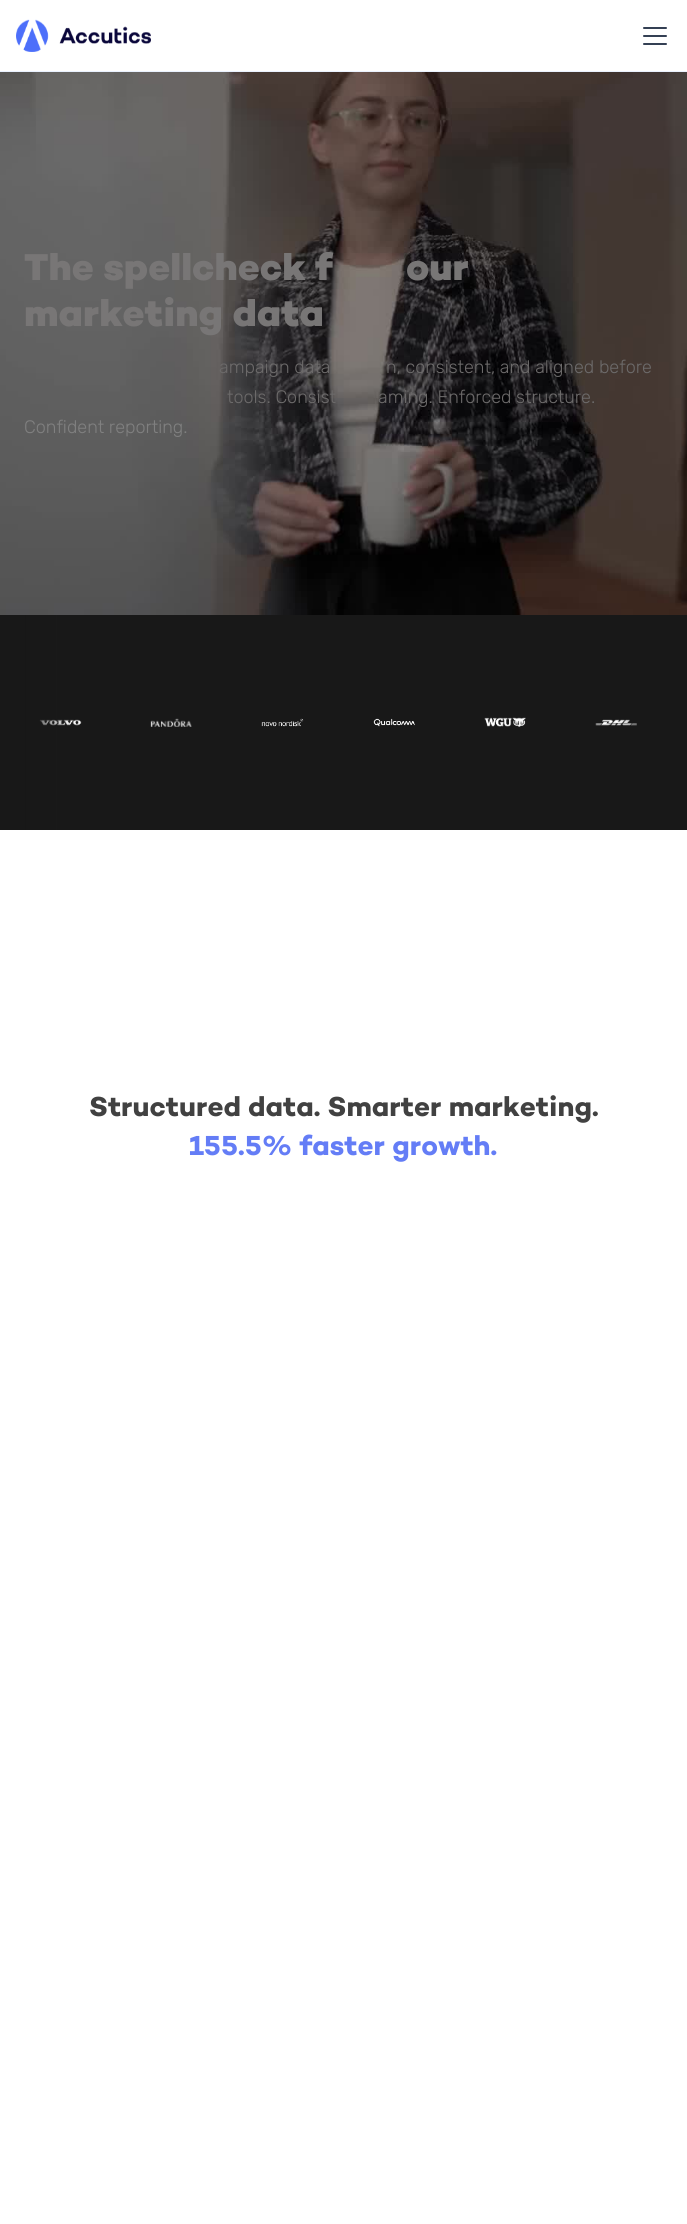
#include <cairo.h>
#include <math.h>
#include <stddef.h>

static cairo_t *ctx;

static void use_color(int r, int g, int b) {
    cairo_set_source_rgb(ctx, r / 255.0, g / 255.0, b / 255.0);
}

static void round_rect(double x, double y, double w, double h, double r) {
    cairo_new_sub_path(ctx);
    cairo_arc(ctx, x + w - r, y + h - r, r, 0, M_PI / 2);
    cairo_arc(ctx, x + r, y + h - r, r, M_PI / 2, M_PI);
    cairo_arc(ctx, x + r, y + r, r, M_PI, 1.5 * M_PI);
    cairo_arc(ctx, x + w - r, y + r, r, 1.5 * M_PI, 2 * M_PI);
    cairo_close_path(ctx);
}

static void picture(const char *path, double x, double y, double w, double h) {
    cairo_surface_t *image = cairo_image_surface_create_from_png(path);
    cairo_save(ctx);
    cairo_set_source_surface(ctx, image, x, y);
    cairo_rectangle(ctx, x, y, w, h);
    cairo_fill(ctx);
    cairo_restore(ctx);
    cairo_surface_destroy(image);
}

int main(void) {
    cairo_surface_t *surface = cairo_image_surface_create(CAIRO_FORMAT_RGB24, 687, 2224);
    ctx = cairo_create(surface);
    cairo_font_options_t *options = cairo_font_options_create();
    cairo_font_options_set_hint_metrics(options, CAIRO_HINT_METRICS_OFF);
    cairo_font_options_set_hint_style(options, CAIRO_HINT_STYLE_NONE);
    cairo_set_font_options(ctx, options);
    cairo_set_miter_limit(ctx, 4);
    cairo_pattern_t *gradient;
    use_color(255, 255, 255);
    cairo_paint(ctx);
    use_color(234, 242, 255);
    cairo_rectangle(ctx, 0, 71, 687, 1);
    cairo_fill(ctx);
    picture("img1.png", 16, 19, 135, 33);
    use_color(52, 64, 84);
    round_rect(643, 27, 24, 2, 1);
    cairo_fill(ctx);
    round_rect(643, 35, 24, 2, 1);
    cairo_fill(ctx);
    round_rect(643, 43, 24, 2, 1);
    cairo_fill(ctx);
    picture("img2.png", 0, 72, 687, 543);
    cairo_select_font_face(ctx, "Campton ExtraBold", CAIRO_FONT_SLANT_NORMAL, CAIRO_FONT_WEIGHT_NORMAL);
    cairo_set_font_size(ctx, 38);
    use_color(120, 118, 118);
    cairo_move_to(ctx, 24, 280);
    cairo_show_text(ctx, "The spellcheck f");
    cairo_move_to(ctx, 406, 280);
    cairo_show_text(ctx, "our");
    cairo_move_to(ctx, 24, 326);
    cairo_show_text(ctx, "marketing data");
    cairo_select_font_face(ctx, "Rubik Light", CAIRO_FONT_SLANT_NORMAL, CAIRO_FONT_WEIGHT_NORMAL);
    cairo_set_font_size(ctx, 18);
    use_color(108, 106, 106);
    cairo_move_to(ctx, 219, 373);
    cairo_show_text(ctx, "ampaign data");
    cairo_move_to(ctx, 386, 373);
    cairo_show_text(ctx, "n, consistent, and aligned before");
    cairo_move_to(ctx, 227, 403);
    cairo_show_text(ctx, "tools. Consist");
    cairo_move_to(ctx, 378, 403);
    cairo_show_text(ctx, "aming. Enforced structure.");
    use_color(128, 128, 128);
    cairo_move_to(ctx, 24, 433);
    cairo_show_text(ctx, "Confident reporting.");
    use_color(24, 24, 24);
    cairo_rectangle(ctx, 18, 615, 669, 215);
    cairo_fill(ctx);
    picture("img3.png", 39, 719, 43, 7);
    gradient = cairo_pattern_create_linear(0, 723, 71, 723);
    cairo_pattern_add_color_stop_rgba(gradient, 0, 0.094, 0.094, 0.094, 1);
    cairo_pattern_add_color_stop_rgba(gradient, 0.25, 0.094, 0.094, 0.094, 1);
    cairo_pattern_add_color_stop_rgba(gradient, 1, 0.094, 0.094, 0.094, 0);
    cairo_set_source(ctx, gradient);
    cairo_pattern_destroy(gradient);
    cairo_rectangle(ctx, 0, 615, 69, 215);
    cairo_fill(ctx);
    picture("img4.png", 150, 718, 42, 9);
    picture("img5.png", 261, 718, 43, 9);
    picture("img6.png", 373, 718, 42, 9);
    picture("img7.png", 484, 717, 42, 10);
    picture("img8.png", 595, 719, 42, 7);
    gradient = cairo_pattern_create_linear(618, 723, 687, 723);
    cairo_pattern_add_color_stop_rgba(gradient, 0, 0.094, 0.094, 0.094, 0);
    cairo_pattern_add_color_stop_rgba(gradient, 1, 0.094, 0.094, 0.094, 1);
    cairo_set_source(ctx, gradient);
    cairo_pattern_destroy(gradient);
    cairo_rectangle(ctx, 619, 719, 18, 7);
    cairo_fill(ctx);
    cairo_select_font_face(ctx, "Campton", CAIRO_FONT_SLANT_NORMAL, CAIRO_FONT_WEIGHT_BOLD);
    cairo_set_font_size(ctx, 28);
    use_color(65, 65, 65);
    cairo_move_to(ctx, 89, 1116);
    cairo_show_text(ctx, "Structured data. Smarter marketing.");
    use_color(100, 125, 246);
    cairo_move_to(ctx, 189, 1155);
    cairo_show_text(ctx, "155.5% faster growth.");
    cairo_surface_write_to_png(surface, "result.png");
    cairo_font_options_destroy(options);
    cairo_destroy(ctx);
    cairo_surface_destroy(surface);
    return 0;
}
